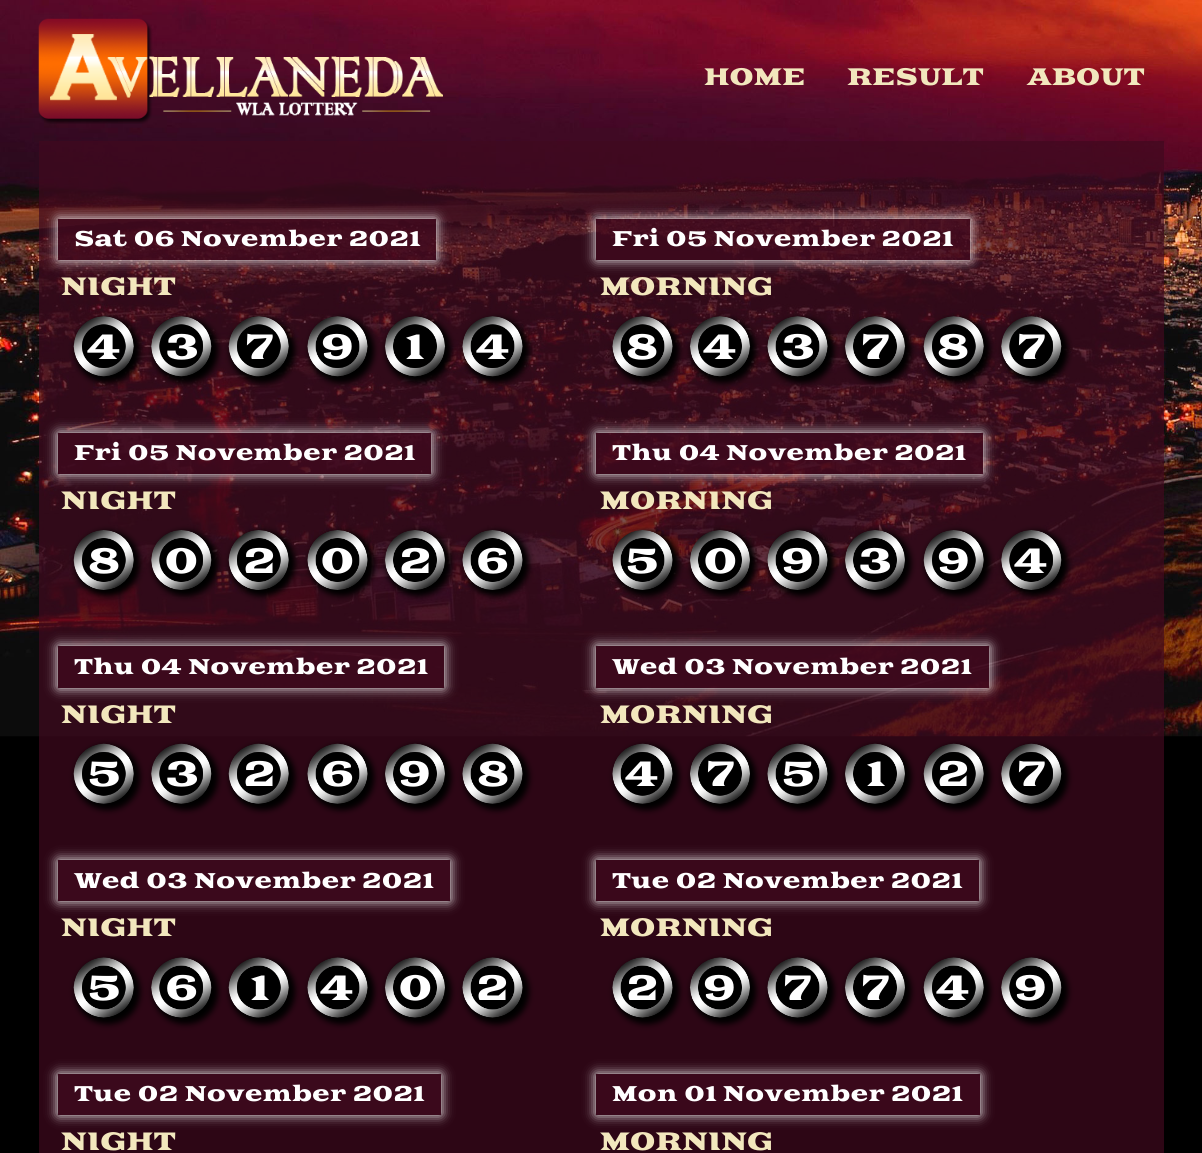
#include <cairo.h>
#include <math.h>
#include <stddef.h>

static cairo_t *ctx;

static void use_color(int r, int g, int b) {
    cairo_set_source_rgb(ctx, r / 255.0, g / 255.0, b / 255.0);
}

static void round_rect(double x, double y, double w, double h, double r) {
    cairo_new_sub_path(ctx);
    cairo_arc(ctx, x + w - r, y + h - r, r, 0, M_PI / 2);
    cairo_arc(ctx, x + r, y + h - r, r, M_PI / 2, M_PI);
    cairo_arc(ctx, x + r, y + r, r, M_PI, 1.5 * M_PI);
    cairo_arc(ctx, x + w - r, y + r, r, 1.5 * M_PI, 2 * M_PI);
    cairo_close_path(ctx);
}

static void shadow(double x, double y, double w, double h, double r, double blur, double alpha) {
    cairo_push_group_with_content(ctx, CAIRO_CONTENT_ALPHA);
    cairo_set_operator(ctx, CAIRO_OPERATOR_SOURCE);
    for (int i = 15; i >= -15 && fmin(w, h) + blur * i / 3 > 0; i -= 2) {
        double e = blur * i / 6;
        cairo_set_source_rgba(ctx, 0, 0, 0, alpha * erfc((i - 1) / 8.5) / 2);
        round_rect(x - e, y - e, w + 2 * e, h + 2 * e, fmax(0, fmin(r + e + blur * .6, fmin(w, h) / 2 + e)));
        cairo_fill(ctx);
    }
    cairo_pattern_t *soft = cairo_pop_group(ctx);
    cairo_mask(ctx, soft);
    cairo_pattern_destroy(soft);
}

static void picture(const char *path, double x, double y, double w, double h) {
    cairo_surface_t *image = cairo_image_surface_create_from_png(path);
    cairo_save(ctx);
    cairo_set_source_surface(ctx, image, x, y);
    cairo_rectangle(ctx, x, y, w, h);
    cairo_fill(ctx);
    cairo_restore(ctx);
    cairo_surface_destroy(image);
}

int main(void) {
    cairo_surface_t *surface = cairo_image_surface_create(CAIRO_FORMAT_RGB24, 1202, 1153);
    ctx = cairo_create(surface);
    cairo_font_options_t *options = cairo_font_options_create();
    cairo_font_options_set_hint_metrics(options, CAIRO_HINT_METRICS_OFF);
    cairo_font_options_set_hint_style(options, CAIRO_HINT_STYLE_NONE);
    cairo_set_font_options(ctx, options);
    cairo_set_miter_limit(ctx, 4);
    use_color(0, 0, 0);
    cairo_paint(ctx);
    picture("img1.png", 0, 0, 1202, 737);
    picture("img2.png", 38, 18, 405, 106);
    cairo_select_font_face(ctx, "Goblin One", CAIRO_FONT_SLANT_NORMAL, CAIRO_FONT_WEIGHT_NORMAL);
    cairo_set_font_size(ctx, 23.75);
    use_color(242, 231, 189);
    cairo_move_to(ctx, 704, 85);
    cairo_show_text(ctx, "HOME");
    cairo_move_to(ctx, 847, 85);
    cairo_show_text(ctx, "RESULT");
    cairo_move_to(ctx, 1027, 85);
    cairo_show_text(ctx, "ABOUT");
    cairo_set_source_rgba(ctx, 0.255, 0.039, 0.122, 0.7);
    cairo_rectangle(ctx, 39, 141, 1125, 1012);
    cairo_fill(ctx);
    cairo_save(ctx);
    cairo_set_fill_rule(ctx, CAIRO_FILL_RULE_EVEN_ODD);
    cairo_new_path(ctx);
    cairo_move_to(ctx, 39, 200);
    cairo_line_to(ctx, 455, 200);
    cairo_line_to(ctx, 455, 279);
    cairo_line_to(ctx, 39, 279);
    cairo_close_path(ctx);
    cairo_move_to(ctx, 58, 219);
    cairo_line_to(ctx, 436, 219);
    cairo_line_to(ctx, 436, 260);
    cairo_line_to(ctx, 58, 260);
    cairo_close_path(ctx);
    cairo_clip(ctx);
    use_color(255, 255, 255);
    shadow(58, 219, 378, 41, 0, 6, 1);
    cairo_restore(ctx);
    cairo_rectangle(ctx, 58, 219, 378, 41);
    cairo_fill(ctx);
    cairo_set_font_size(ctx, 21.25);
    use_color(255, 255, 255);
    cairo_move_to(ctx, 74, 246);
    cairo_show_text(ctx, "Sat 06 November 2021");
    cairo_set_font_size(ctx, 25);
    use_color(242, 231, 189);
    cairo_move_to(ctx, 61, 295);
    cairo_show_text(ctx, "NIGHT");
    use_color(0, 0, 0);
    shadow(75, 318, 65, 65, 32.5, 3, 1);
    picture("img3.png", 73, 316, 61, 61);
    cairo_set_font_size(ctx, 35);
    use_color(255, 255, 255);
    cairo_move_to(ctx, 87, 359);
    cairo_show_text(ctx, "4");
    use_color(0, 0, 0);
    shadow(153, 318, 65, 65, 32.5, 3, 1);
    picture("img4.png", 151, 316, 61, 61);
    use_color(255, 255, 255);
    cairo_move_to(ctx, 165, 359);
    cairo_show_text(ctx, "3");
    use_color(0, 0, 0);
    shadow(230, 318, 65, 65, 32.5, 3, 1);
    picture("img5.png", 228, 316, 61, 61);
    use_color(255, 255, 255);
    cairo_move_to(ctx, 244, 359);
    cairo_show_text(ctx, "7");
    use_color(0, 0, 0);
    shadow(309, 318, 65, 65, 32.5, 3, 1);
    picture("img6.png", 307, 316, 61, 61);
    use_color(255, 255, 255);
    cairo_move_to(ctx, 321, 359);
    cairo_show_text(ctx, "9");
    use_color(0, 0, 0);
    shadow(386, 318, 65, 65, 32.5, 3, 1);
    picture("img7.png", 384, 316, 62, 61);
    use_color(255, 255, 255);
    cairo_move_to(ctx, 405, 359);
    cairo_show_text(ctx, "1");
    use_color(0, 0, 0);
    shadow(464, 318, 65, 65, 32.5, 3, 1);
    picture("img8.png", 462, 316, 61, 61);
    use_color(255, 255, 255);
    cairo_move_to(ctx, 476, 359);
    cairo_show_text(ctx, "4");
    cairo_save(ctx);
    cairo_set_fill_rule(ctx, CAIRO_FILL_RULE_EVEN_ODD);
    cairo_new_path(ctx);
    cairo_move_to(ctx, 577, 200);
    cairo_line_to(ctx, 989, 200);
    cairo_line_to(ctx, 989, 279);
    cairo_line_to(ctx, 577, 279);
    cairo_close_path(ctx);
    cairo_move_to(ctx, 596, 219);
    cairo_line_to(ctx, 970, 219);
    cairo_line_to(ctx, 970, 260);
    cairo_line_to(ctx, 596, 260);
    cairo_close_path(ctx);
    cairo_clip(ctx);
    use_color(255, 255, 255);
    shadow(596, 219, 374, 41, 0, 6, 1);
    cairo_restore(ctx);
    cairo_set_source_rgba(ctx, 0.255, 0.039, 0.122, 0.7);
    cairo_rectangle(ctx, 596, 219, 374, 41);
    cairo_fill(ctx);
    cairo_set_font_size(ctx, 21.25);
    use_color(255, 255, 255);
    cairo_move_to(ctx, 612, 246);
    cairo_show_text(ctx, "Fri 05 November 2021");
    cairo_set_font_size(ctx, 25);
    use_color(242, 231, 189);
    cairo_move_to(ctx, 600, 295);
    cairo_show_text(ctx, "MORNING");
    use_color(0, 0, 0);
    shadow(614, 318, 65, 65, 32.5, 3, 1);
    picture("img9.png", 612, 316, 61, 61);
    cairo_set_font_size(ctx, 35);
    use_color(255, 255, 255);
    cairo_move_to(ctx, 626, 359);
    cairo_show_text(ctx, "8");
    use_color(0, 0, 0);
    shadow(691, 318, 65, 65, 32.5, 3, 1);
    picture("img10.png", 689, 316, 62, 61);
    use_color(255, 255, 255);
    cairo_move_to(ctx, 703, 359);
    cairo_show_text(ctx, "4");
    use_color(0, 0, 0);
    shadow(769, 318, 65, 65, 32.5, 3, 1);
    picture("img11.png", 767, 316, 61, 61);
    use_color(255, 255, 255);
    cairo_move_to(ctx, 781, 359);
    cairo_show_text(ctx, "3");
    use_color(0, 0, 0);
    shadow(846, 318, 65, 65, 32.5, 3, 1);
    picture("img12.png", 844, 316, 62, 61);
    use_color(255, 255, 255);
    cairo_move_to(ctx, 860, 359);
    cairo_show_text(ctx, "7");
    use_color(0, 0, 0);
    shadow(925, 318, 65, 65, 32.5, 3, 1);
    picture("img13.png", 923, 316, 61, 61);
    use_color(255, 255, 255);
    cairo_move_to(ctx, 937, 359);
    cairo_show_text(ctx, "8");
    use_color(0, 0, 0);
    shadow(1003, 318, 65, 65, 32.5, 3, 1);
    picture("img14.png", 1001, 316, 61, 61);
    use_color(255, 255, 255);
    cairo_move_to(ctx, 1016, 359);
    cairo_show_text(ctx, "7");
    cairo_save(ctx);
    cairo_set_fill_rule(ctx, CAIRO_FILL_RULE_EVEN_ODD);
    cairo_new_path(ctx);
    cairo_move_to(ctx, 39, 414);
    cairo_line_to(ctx, 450, 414);
    cairo_line_to(ctx, 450, 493);
    cairo_line_to(ctx, 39, 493);
    cairo_close_path(ctx);
    cairo_move_to(ctx, 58, 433);
    cairo_line_to(ctx, 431, 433);
    cairo_line_to(ctx, 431, 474);
    cairo_line_to(ctx, 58, 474);
    cairo_close_path(ctx);
    cairo_clip(ctx);
    use_color(255, 255, 255);
    shadow(58, 433, 373, 41, 0, 6, 1);
    cairo_restore(ctx);
    cairo_set_source_rgba(ctx, 0.255, 0.039, 0.122, 0.7);
    cairo_rectangle(ctx, 58, 433, 373, 41);
    cairo_fill(ctx);
    cairo_set_font_size(ctx, 21.25);
    use_color(255, 255, 255);
    cairo_move_to(ctx, 74, 460);
    cairo_show_text(ctx, "Fri 05 November 2021");
    cairo_set_font_size(ctx, 25);
    use_color(242, 231, 189);
    cairo_move_to(ctx, 61, 509);
    cairo_show_text(ctx, "NIGHT");
    use_color(0, 0, 0);
    shadow(75, 531, 65, 65, 32.5, 3, 1);
    picture("img15.png", 73, 530, 61, 60);
    cairo_set_font_size(ctx, 35);
    use_color(255, 255, 255);
    cairo_move_to(ctx, 88, 573);
    cairo_show_text(ctx, "8");
    use_color(0, 0, 0);
    shadow(153, 531, 65, 65, 32.5, 3, 1);
    picture("img16.png", 151, 530, 61, 60);
    use_color(255, 255, 255);
    cairo_move_to(ctx, 164, 573);
    cairo_show_text(ctx, "0");
    use_color(0, 0, 0);
    shadow(230, 531, 65, 65, 32.5, 3, 1);
    picture("img17.png", 228, 530, 61, 60);
    use_color(255, 255, 255);
    cairo_move_to(ctx, 243, 573);
    cairo_show_text(ctx, "2");
    use_color(0, 0, 0);
    shadow(309, 531, 65, 65, 32.5, 3, 1);
    picture("img18.png", 307, 530, 61, 60);
    use_color(255, 255, 255);
    cairo_move_to(ctx, 320, 573);
    cairo_show_text(ctx, "0");
    use_color(0, 0, 0);
    shadow(386, 531, 65, 65, 32.5, 3, 1);
    picture("img19.png", 385, 530, 60, 60);
    use_color(255, 255, 255);
    cairo_move_to(ctx, 399, 573);
    cairo_show_text(ctx, "2");
    use_color(0, 0, 0);
    shadow(464, 531, 65, 65, 32.5, 3, 1);
    picture("img20.png", 462, 530, 61, 60);
    use_color(255, 255, 255);
    cairo_move_to(ctx, 476, 573);
    cairo_show_text(ctx, "6");
    cairo_save(ctx);
    cairo_set_fill_rule(ctx, CAIRO_FILL_RULE_EVEN_ODD);
    cairo_new_path(ctx);
    cairo_move_to(ctx, 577, 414);
    cairo_line_to(ctx, 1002, 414);
    cairo_line_to(ctx, 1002, 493);
    cairo_line_to(ctx, 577, 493);
    cairo_close_path(ctx);
    cairo_move_to(ctx, 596, 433);
    cairo_line_to(ctx, 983, 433);
    cairo_line_to(ctx, 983, 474);
    cairo_line_to(ctx, 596, 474);
    cairo_close_path(ctx);
    cairo_clip(ctx);
    use_color(255, 255, 255);
    shadow(596, 433, 387, 41, 0, 6, 1);
    cairo_restore(ctx);
    cairo_set_source_rgba(ctx, 0.255, 0.039, 0.122, 0.7);
    cairo_rectangle(ctx, 596, 433, 387, 41);
    cairo_fill(ctx);
    cairo_set_font_size(ctx, 21.25);
    use_color(255, 255, 255);
    cairo_move_to(ctx, 612, 460);
    cairo_show_text(ctx, "Thu 04 November 2021");
    cairo_set_font_size(ctx, 25);
    use_color(242, 231, 189);
    cairo_move_to(ctx, 600, 509);
    cairo_show_text(ctx, "MORNING");
    use_color(0, 0, 0);
    shadow(614, 531, 65, 65, 32.5, 3, 1);
    picture("img21.png", 612, 530, 61, 60);
    cairo_set_font_size(ctx, 35);
    use_color(255, 255, 255);
    cairo_move_to(ctx, 625, 573);
    cairo_show_text(ctx, "5");
    use_color(0, 0, 0);
    shadow(691, 531, 65, 65, 32.5, 3, 1);
    picture("img22.png", 690, 530, 60, 60);
    use_color(255, 255, 255);
    cairo_move_to(ctx, 703, 573);
    cairo_show_text(ctx, "0");
    use_color(0, 0, 0);
    shadow(769, 531, 65, 65, 32.5, 3, 1);
    picture("img23.png", 767, 530, 61, 60);
    use_color(255, 255, 255);
    cairo_move_to(ctx, 781, 573);
    cairo_show_text(ctx, "9");
    use_color(0, 0, 0);
    shadow(846, 531, 65, 65, 32.5, 3, 1);
    picture("img24.png", 845, 530, 60, 60);
    use_color(255, 255, 255);
    cairo_move_to(ctx, 858, 573);
    cairo_show_text(ctx, "3");
    use_color(0, 0, 0);
    shadow(925, 531, 65, 65, 32.5, 3, 1);
    picture("img25.png", 923, 530, 61, 60);
    use_color(255, 255, 255);
    cairo_move_to(ctx, 937, 573);
    cairo_show_text(ctx, "9");
    use_color(0, 0, 0);
    shadow(1003, 531, 65, 65, 32.5, 3, 1);
    picture("img26.png", 1001, 530, 61, 60);
    use_color(255, 255, 255);
    cairo_move_to(ctx, 1014, 573);
    cairo_show_text(ctx, "4");
    cairo_save(ctx);
    cairo_set_fill_rule(ctx, CAIRO_FILL_RULE_EVEN_ODD);
    cairo_new_path(ctx);
    cairo_move_to(ctx, 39, 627);
    cairo_line_to(ctx, 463, 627);
    cairo_line_to(ctx, 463, 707);
    cairo_line_to(ctx, 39, 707);
    cairo_close_path(ctx);
    cairo_move_to(ctx, 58, 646);
    cairo_line_to(ctx, 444, 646);
    cairo_line_to(ctx, 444, 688);
    cairo_line_to(ctx, 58, 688);
    cairo_close_path(ctx);
    cairo_clip(ctx);
    use_color(255, 255, 255);
    shadow(58, 646, 386, 42, 0, 6, 1);
    cairo_restore(ctx);
    cairo_set_source_rgba(ctx, 0.255, 0.039, 0.122, 0.7);
    cairo_rectangle(ctx, 58, 646, 386, 42);
    cairo_fill(ctx);
    cairo_set_font_size(ctx, 21.25);
    use_color(255, 255, 255);
    cairo_move_to(ctx, 74, 674);
    cairo_show_text(ctx, "Thu 04 November 2021");
    cairo_set_font_size(ctx, 25);
    use_color(242, 231, 189);
    cairo_move_to(ctx, 61, 723);
    cairo_show_text(ctx, "NIGHT");
    use_color(0, 0, 0);
    shadow(75, 745, 65, 65, 32.5, 3, 1);
    picture("img27.png", 73, 743, 61, 61);
    cairo_set_font_size(ctx, 35);
    use_color(255, 255, 255);
    cairo_move_to(ctx, 87, 786);
    cairo_show_text(ctx, "5");
    use_color(0, 0, 0);
    shadow(153, 745, 65, 65, 32.5, 3, 1);
    picture("img28.png", 151, 743, 61, 61);
    use_color(255, 255, 255);
    cairo_move_to(ctx, 165, 786);
    cairo_show_text(ctx, "3");
    use_color(0, 0, 0);
    shadow(230, 745, 65, 65, 32.5, 3, 1);
    picture("img29.png", 228, 743, 61, 61);
    use_color(255, 255, 255);
    cairo_move_to(ctx, 243, 786);
    cairo_show_text(ctx, "2");
    use_color(0, 0, 0);
    shadow(309, 745, 65, 65, 32.5, 3, 1);
    picture("img30.png", 307, 743, 61, 61);
    use_color(255, 255, 255);
    cairo_move_to(ctx, 321, 786);
    cairo_show_text(ctx, "6");
    use_color(0, 0, 0);
    shadow(386, 745, 65, 65, 32.5, 3, 1);
    picture("img31.png", 385, 743, 60, 61);
    use_color(255, 255, 255);
    cairo_move_to(ctx, 398, 786);
    cairo_show_text(ctx, "9");
    use_color(0, 0, 0);
    shadow(464, 745, 65, 65, 32.5, 3, 1);
    picture("img32.png", 462, 743, 61, 61);
    use_color(255, 255, 255);
    cairo_move_to(ctx, 477, 786);
    cairo_show_text(ctx, "8");
    cairo_save(ctx);
    cairo_set_fill_rule(ctx, CAIRO_FILL_RULE_EVEN_ODD);
    cairo_new_path(ctx);
    cairo_move_to(ctx, 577, 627);
    cairo_line_to(ctx, 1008, 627);
    cairo_line_to(ctx, 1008, 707);
    cairo_line_to(ctx, 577, 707);
    cairo_close_path(ctx);
    cairo_move_to(ctx, 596, 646);
    cairo_line_to(ctx, 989, 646);
    cairo_line_to(ctx, 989, 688);
    cairo_line_to(ctx, 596, 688);
    cairo_close_path(ctx);
    cairo_clip(ctx);
    use_color(255, 255, 255);
    shadow(596, 646, 393, 42, 0, 6, 1);
    cairo_restore(ctx);
    cairo_set_source_rgba(ctx, 0.255, 0.039, 0.122, 0.7);
    cairo_rectangle(ctx, 596, 646, 393, 42);
    cairo_fill(ctx);
    cairo_set_font_size(ctx, 21.25);
    use_color(255, 255, 255);
    cairo_move_to(ctx, 612, 674);
    cairo_show_text(ctx, "Wed 03 November 2021");
    cairo_set_font_size(ctx, 25);
    use_color(242, 231, 189);
    cairo_move_to(ctx, 600, 723);
    cairo_show_text(ctx, "MORNING");
    use_color(0, 0, 0);
    shadow(614, 745, 65, 65, 32.5, 3, 1);
    picture("img33.png", 612, 743, 61, 61);
    cairo_set_font_size(ctx, 35);
    use_color(255, 255, 255);
    cairo_move_to(ctx, 625, 786);
    cairo_show_text(ctx, "4");
    use_color(0, 0, 0);
    shadow(691, 745, 65, 65, 32.5, 3, 1);
    picture("img34.png", 690, 743, 60, 61);
    use_color(255, 255, 255);
    cairo_move_to(ctx, 705, 786);
    cairo_show_text(ctx, "7");
    use_color(0, 0, 0);
    shadow(769, 745, 65, 65, 32.5, 3, 1);
    picture("img35.png", 767, 743, 61, 61);
    use_color(255, 255, 255);
    cairo_move_to(ctx, 781, 786);
    cairo_show_text(ctx, "5");
    use_color(0, 0, 0);
    shadow(846, 745, 65, 65, 32.5, 3, 1);
    picture("img36.png", 845, 743, 60, 61);
    use_color(255, 255, 255);
    cairo_move_to(ctx, 866, 786);
    cairo_show_text(ctx, "1");
    use_color(0, 0, 0);
    shadow(925, 745, 65, 65, 32.5, 3, 1);
    picture("img37.png", 923, 743, 61, 61);
    use_color(255, 255, 255);
    cairo_move_to(ctx, 937, 786);
    cairo_show_text(ctx, "2");
    use_color(0, 0, 0);
    shadow(1003, 745, 65, 65, 32.5, 3, 1);
    picture("img38.png", 1001, 743, 61, 61);
    use_color(255, 255, 255);
    cairo_move_to(ctx, 1016, 786);
    cairo_show_text(ctx, "7");
    use_color(255, 255, 255);
    shadow(58, 860, 392, 41, 0, 6, 1);
    use_color(59, 9, 28);
    cairo_rectangle(ctx, 58, 860, 392, 41);
    cairo_fill(ctx);
    cairo_set_font_size(ctx, 21.25);
    use_color(255, 255, 255);
    cairo_move_to(ctx, 74, 888);
    cairo_show_text(ctx, "Wed 03 November 2021");
    cairo_set_font_size(ctx, 25);
    use_color(242, 231, 189);
    cairo_move_to(ctx, 61, 936);
    cairo_show_text(ctx, "NIGHT");
    use_color(0, 0, 0);
    shadow(75, 959, 65, 65, 32.5, 3, 1);
    picture("img39.png", 73, 957, 61, 61);
    cairo_set_font_size(ctx, 35);
    use_color(255, 255, 255);
    cairo_move_to(ctx, 87, 1000);
    cairo_show_text(ctx, "5");
    use_color(0, 0, 0);
    shadow(153, 959, 65, 65, 32.5, 3, 1);
    picture("img40.png", 151, 957, 61, 61);
    use_color(255, 255, 255);
    cairo_move_to(ctx, 165, 1000);
    cairo_show_text(ctx, "6");
    use_color(0, 0, 0);
    shadow(230, 959, 65, 65, 32.5, 3, 1);
    picture("img41.png", 228, 957, 61, 61);
    use_color(255, 255, 255);
    cairo_move_to(ctx, 250, 1000);
    cairo_show_text(ctx, "1");
    use_color(0, 0, 0);
    shadow(309, 959, 65, 65, 32.5, 3, 1);
    picture("img42.png", 307, 957, 61, 61);
    use_color(255, 255, 255);
    cairo_move_to(ctx, 320, 1000);
    cairo_show_text(ctx, "4");
    use_color(0, 0, 0);
    shadow(386, 959, 65, 65, 32.5, 3, 1);
    picture("img43.png", 384, 957, 61, 61);
    use_color(255, 255, 255);
    cairo_move_to(ctx, 398, 1000);
    cairo_show_text(ctx, "0");
    use_color(0, 0, 0);
    shadow(464, 959, 65, 65, 32.5, 3, 1);
    picture("img44.png", 462, 957, 61, 61);
    use_color(255, 255, 255);
    cairo_move_to(ctx, 476, 1000);
    cairo_show_text(ctx, "2");
    cairo_save(ctx);
    cairo_set_fill_rule(ctx, CAIRO_FILL_RULE_EVEN_ODD);
    cairo_new_path(ctx);
    cairo_move_to(ctx, 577, 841);
    cairo_line_to(ctx, 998, 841);
    cairo_line_to(ctx, 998, 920);
    cairo_line_to(ctx, 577, 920);
    cairo_close_path(ctx);
    cairo_move_to(ctx, 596, 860);
    cairo_line_to(ctx, 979, 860);
    cairo_line_to(ctx, 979, 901);
    cairo_line_to(ctx, 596, 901);
    cairo_close_path(ctx);
    cairo_clip(ctx);
    use_color(255, 255, 255);
    shadow(596, 860, 383, 41, 0, 6, 1);
    cairo_restore(ctx);
    cairo_set_source_rgba(ctx, 0.255, 0.039, 0.122, 0.7);
    cairo_rectangle(ctx, 596, 860, 383, 41);
    cairo_fill(ctx);
    cairo_set_font_size(ctx, 21.25);
    use_color(255, 255, 255);
    cairo_move_to(ctx, 612, 888);
    cairo_show_text(ctx, "Tue 02 November 2021");
    cairo_set_font_size(ctx, 25);
    use_color(242, 231, 189);
    cairo_move_to(ctx, 600, 936);
    cairo_show_text(ctx, "MORNING");
    use_color(0, 0, 0);
    shadow(614, 959, 65, 65, 32.5, 3, 1);
    picture("img45.png", 612, 957, 61, 61);
    cairo_set_font_size(ctx, 35);
    use_color(255, 255, 255);
    cairo_move_to(ctx, 626, 1000);
    cairo_show_text(ctx, "2");
    use_color(0, 0, 0);
    shadow(691, 959, 65, 65, 32.5, 3, 1);
    picture("img46.png", 689, 957, 61, 61);
    use_color(255, 255, 255);
    cairo_move_to(ctx, 703, 1000);
    cairo_show_text(ctx, "9");
    use_color(0, 0, 0);
    shadow(769, 959, 65, 65, 32.5, 3, 1);
    picture("img47.png", 767, 957, 61, 61);
    use_color(255, 255, 255);
    cairo_move_to(ctx, 782, 1000);
    cairo_show_text(ctx, "7");
    use_color(0, 0, 0);
    shadow(846, 959, 65, 65, 32.5, 3, 1);
    picture("img48.png", 844, 957, 61, 61);
    use_color(255, 255, 255);
    cairo_move_to(ctx, 860, 1000);
    cairo_show_text(ctx, "7");
    use_color(0, 0, 0);
    shadow(925, 959, 65, 65, 32.5, 3, 1);
    picture("img49.png", 923, 957, 61, 61);
    use_color(255, 255, 255);
    cairo_move_to(ctx, 936, 1000);
    cairo_show_text(ctx, "4");
    use_color(0, 0, 0);
    shadow(1003, 959, 65, 65, 32.5, 3, 1);
    picture("img50.png", 1001, 957, 61, 61);
    use_color(255, 255, 255);
    cairo_move_to(ctx, 1014, 1000);
    cairo_show_text(ctx, "9");
    use_color(255, 255, 255);
    shadow(58, 1074, 383, 41, 0, 6, 1);
    use_color(59, 9, 28);
    cairo_rectangle(ctx, 58, 1074, 383, 41);
    cairo_fill(ctx);
    cairo_set_font_size(ctx, 21.25);
    use_color(255, 255, 255);
    cairo_move_to(ctx, 74, 1101);
    cairo_show_text(ctx, "Tue 02 November 2021");
    cairo_set_font_size(ctx, 25);
    use_color(242, 231, 189);
    cairo_move_to(ctx, 61, 1150);
    cairo_show_text(ctx, "NIGHT");
    cairo_save(ctx);
    cairo_set_fill_rule(ctx, CAIRO_FILL_RULE_EVEN_ODD);
    cairo_new_path(ctx);
    cairo_move_to(ctx, 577, 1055);
    cairo_line_to(ctx, 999, 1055);
    cairo_line_to(ctx, 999, 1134);
    cairo_line_to(ctx, 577, 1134);
    cairo_close_path(ctx);
    cairo_move_to(ctx, 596, 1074);
    cairo_line_to(ctx, 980, 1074);
    cairo_line_to(ctx, 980, 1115);
    cairo_line_to(ctx, 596, 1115);
    cairo_close_path(ctx);
    cairo_clip(ctx);
    use_color(255, 255, 255);
    shadow(596, 1074, 384, 41, 0, 6, 1);
    cairo_restore(ctx);
    cairo_set_source_rgba(ctx, 0.255, 0.039, 0.122, 0.7);
    cairo_rectangle(ctx, 596, 1074, 384, 41);
    cairo_fill(ctx);
    cairo_set_font_size(ctx, 21.25);
    use_color(255, 255, 255);
    cairo_move_to(ctx, 612, 1101);
    cairo_show_text(ctx, "Mon 01 November 2021");
    cairo_set_font_size(ctx, 25);
    use_color(242, 231, 189);
    cairo_move_to(ctx, 600, 1150);
    cairo_show_text(ctx, "MORNING");
    cairo_surface_write_to_png(surface, "result.png");
    cairo_font_options_destroy(options);
    cairo_destroy(ctx);
    cairo_surface_destroy(surface);
    return 0;
}
